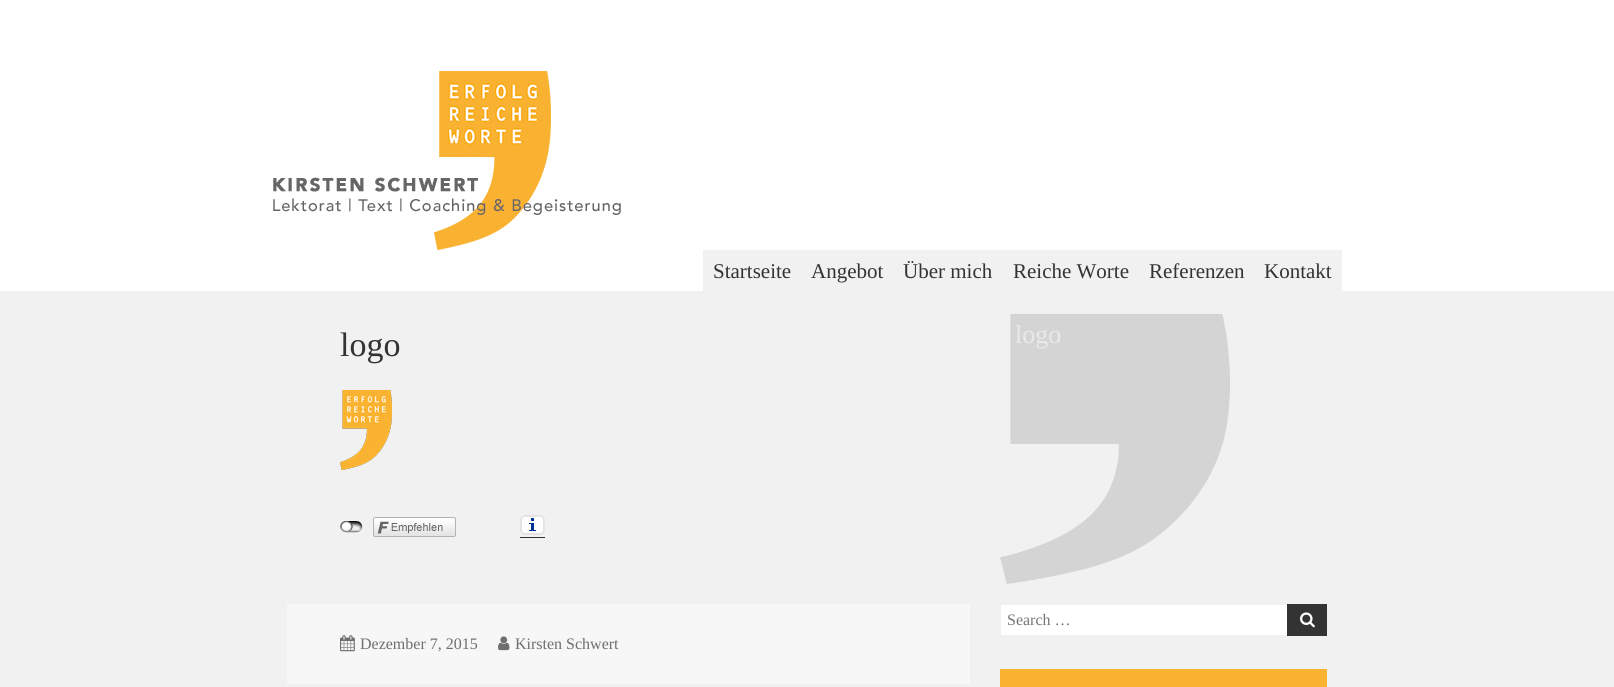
#include <cairo.h>
#include <math.h>
#include <stddef.h>

static cairo_t *ctx;

static void use_color(int r, int g, int b) {
    cairo_set_source_rgb(ctx, r / 255.0, g / 255.0, b / 255.0);
}

static void round_rect(double x, double y, double w, double h, double r) {
    cairo_new_sub_path(ctx);
    cairo_arc(ctx, x + w - r, y + h - r, r, 0, M_PI / 2);
    cairo_arc(ctx, x + r, y + h - r, r, M_PI / 2, M_PI);
    cairo_arc(ctx, x + r, y + r, r, M_PI, 1.5 * M_PI);
    cairo_arc(ctx, x + w - r, y + r, r, 1.5 * M_PI, 2 * M_PI);
    cairo_close_path(ctx);
}

static void picture(const char *path, double x, double y, double w, double h) {
    cairo_surface_t *image = cairo_image_surface_create_from_png(path);
    cairo_save(ctx);
    cairo_set_source_surface(ctx, image, x, y);
    cairo_rectangle(ctx, x, y, w, h);
    cairo_fill(ctx);
    cairo_restore(ctx);
    cairo_surface_destroy(image);
}

int main(void) {
    cairo_surface_t *surface = cairo_image_surface_create(CAIRO_FORMAT_RGB24, 1614, 687);
    ctx = cairo_create(surface);
    cairo_font_options_t *options = cairo_font_options_create();
    cairo_font_options_set_hint_metrics(options, CAIRO_HINT_METRICS_OFF);
    cairo_font_options_set_hint_style(options, CAIRO_HINT_STYLE_NONE);
    cairo_set_font_options(ctx, options);
    cairo_set_miter_limit(ctx, 4);
    use_color(241, 241, 241);
    cairo_paint(ctx);
    use_color(255, 255, 255);
    cairo_rectangle(ctx, 0, 0, 1614, 291);
    cairo_fill(ctx);
    picture("img1.png", 273, 71, 348, 179);
    use_color(241, 241, 241);
    cairo_rectangle(ctx, 703, 250, 639, 41);
    cairo_fill(ctx);
    cairo_select_font_face(ctx, "Liberation Serif", CAIRO_FONT_SLANT_NORMAL, CAIRO_FONT_WEIGHT_NORMAL);
    cairo_set_font_size(ctx, 21);
    use_color(51, 51, 51);
    cairo_move_to(ctx, 713, 278);
    cairo_show_text(ctx, "Startseite");
    cairo_move_to(ctx, 811, 278);
    cairo_show_text(ctx, "Angebot");
    cairo_move_to(ctx, 903, 278);
    cairo_show_text(ctx, "Über mich");
    cairo_move_to(ctx, 1013, 278);
    cairo_show_text(ctx, "Reiche Worte");
    cairo_move_to(ctx, 1149, 278);
    cairo_show_text(ctx, "Referenzen");
    cairo_move_to(ctx, 1264, 278);
    cairo_show_text(ctx, "Kontakt");
    cairo_set_font_size(ctx, 34);
    cairo_move_to(ctx, 340, 356);
    cairo_show_text(ctx, "logo");
    picture("img2.png", 340, 390, 52, 80);
    picture("img3.png", 340, 521, 23, 12);
    picture("img4.png", 373, 517, 83, 20);
    cairo_rectangle(ctx, 520, 537, 25, 1);
    cairo_fill(ctx);
    use_color(255, 255, 255);
    round_rect(520, 515, 25, 20, 5);
    cairo_fill(ctx);
    picture("img5.png", 529, 518, 7, 13);
    round_rect(521, 516, 23, 18, 4);
    use_color(231, 227, 227);
    cairo_stroke(ctx);
    use_color(247, 247, 247);
    cairo_rectangle(ctx, 287, 604, 683, 80);
    cairo_fill(ctx);
    picture("img6.png", 340, 635, 15, 17);
    cairo_set_font_size(ctx, 16);
    use_color(110, 110, 110);
    cairo_move_to(ctx, 360, 649);
    cairo_show_text(ctx, "Dezember 7, 2015");
    picture("img7.png", 498, 636, 12, 15);
    cairo_move_to(ctx, 515, 649);
    cairo_show_text(ctx, "Kirsten Schwert");
    picture("img8.png", 1000, 314, 230, 270);
    cairo_set_font_size(ctx, 26);
    use_color(233, 233, 233);
    cairo_move_to(ctx, 1015, 343);
    cairo_show_text(ctx, "logo");
    use_color(255, 255, 255);
    cairo_rectangle(ctx, 1001, 605, 286, 30);
    cairo_fill(ctx);
    cairo_set_font_size(ctx, 16);
    use_color(117, 117, 117);
    cairo_move_to(ctx, 1007, 625);
    cairo_show_text(ctx, "Search …");
    use_color(51, 51, 51);
    cairo_rectangle(ctx, 1287, 604, 40, 32);
    cairo_fill(ctx);
    picture("img9.png", 1300, 612, 15, 16);
    use_color(250, 178, 49);
    cairo_rectangle(ctx, 1000, 669, 327, 18);
    cairo_fill(ctx);
    cairo_surface_write_to_png(surface, "result.png");
    cairo_font_options_destroy(options);
    cairo_destroy(ctx);
    cairo_surface_destroy(surface);
    return 0;
}
